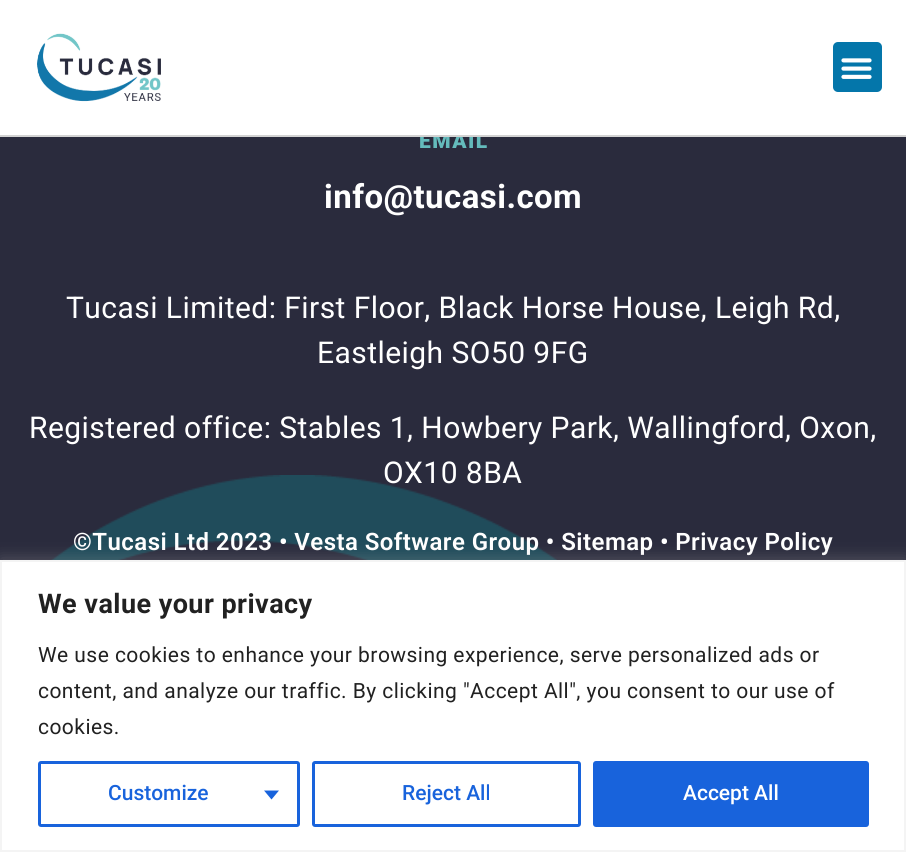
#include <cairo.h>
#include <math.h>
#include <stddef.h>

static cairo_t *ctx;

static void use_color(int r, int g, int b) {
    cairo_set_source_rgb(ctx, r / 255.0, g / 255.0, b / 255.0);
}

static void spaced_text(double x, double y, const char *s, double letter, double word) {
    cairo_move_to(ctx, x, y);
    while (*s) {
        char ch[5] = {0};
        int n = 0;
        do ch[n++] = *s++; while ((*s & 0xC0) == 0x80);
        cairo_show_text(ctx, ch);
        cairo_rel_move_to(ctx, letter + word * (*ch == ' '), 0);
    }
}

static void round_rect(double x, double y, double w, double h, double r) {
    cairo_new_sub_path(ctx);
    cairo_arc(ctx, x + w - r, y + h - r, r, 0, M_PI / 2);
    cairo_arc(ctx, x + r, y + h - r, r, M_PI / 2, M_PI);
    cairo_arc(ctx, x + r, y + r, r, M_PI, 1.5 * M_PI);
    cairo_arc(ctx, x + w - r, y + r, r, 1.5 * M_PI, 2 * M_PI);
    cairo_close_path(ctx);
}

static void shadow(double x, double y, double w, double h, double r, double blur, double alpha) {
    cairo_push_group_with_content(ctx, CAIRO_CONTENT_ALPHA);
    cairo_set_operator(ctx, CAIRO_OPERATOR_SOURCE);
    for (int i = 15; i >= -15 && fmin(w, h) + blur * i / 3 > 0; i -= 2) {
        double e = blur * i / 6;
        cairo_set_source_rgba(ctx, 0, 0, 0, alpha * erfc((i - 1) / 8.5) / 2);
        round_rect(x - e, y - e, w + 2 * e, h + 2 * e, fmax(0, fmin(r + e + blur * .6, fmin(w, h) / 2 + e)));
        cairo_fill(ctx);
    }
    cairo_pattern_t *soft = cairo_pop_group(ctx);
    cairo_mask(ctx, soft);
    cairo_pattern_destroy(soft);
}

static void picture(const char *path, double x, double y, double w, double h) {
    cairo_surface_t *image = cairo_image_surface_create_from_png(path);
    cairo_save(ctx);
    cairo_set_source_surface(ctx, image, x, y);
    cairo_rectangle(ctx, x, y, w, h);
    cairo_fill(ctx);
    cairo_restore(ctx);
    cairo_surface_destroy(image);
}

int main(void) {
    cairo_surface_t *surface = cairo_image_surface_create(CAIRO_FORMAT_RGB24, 906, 852);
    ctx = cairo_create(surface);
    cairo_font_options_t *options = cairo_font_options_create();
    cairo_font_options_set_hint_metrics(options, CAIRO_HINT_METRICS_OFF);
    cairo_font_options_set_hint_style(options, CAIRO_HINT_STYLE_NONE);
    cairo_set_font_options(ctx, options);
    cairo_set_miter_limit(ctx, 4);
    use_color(42, 43, 61);
    cairo_paint(ctx);
    cairo_select_font_face(ctx, "Roboto Black", CAIRO_FONT_SLANT_NORMAL, CAIRO_FONT_WEIGHT_NORMAL);
    cairo_set_font_size(ctx, 21);
    use_color(100, 187, 188);
    spaced_text(419, 148, "EMAIL", 1.5, 0);
    use_color(255, 255, 255);
    cairo_rectangle(ctx, 0, 0, 906, 135);
    cairo_fill(ctx);
    use_color(211, 211, 211);
    cairo_rectangle(ctx, 0, 135, 906, 2);
    cairo_fill(ctx);
    picture("img1.png", 37, 33, 124, 69);
    use_color(4, 118, 170);
    round_rect(833, 42, 49, 50, 5);
    cairo_fill(ctx);
    picture("img2.png", 841, 58, 31, 21);
    picture("img3.png", 51, 475, 506, 85);
    cairo_select_font_face(ctx, "Roboto", CAIRO_FONT_SLANT_NORMAL, CAIRO_FONT_WEIGHT_BOLD);
    cairo_set_font_size(ctx, 33);
    use_color(255, 255, 255);
    spaced_text(324, 208, "info@tucasi.com", 0.45, 0);
    cairo_select_font_face(ctx, "Roboto", CAIRO_FONT_SLANT_NORMAL, CAIRO_FONT_WEIGHT_NORMAL);
    cairo_set_font_size(ctx, 30);
    spaced_text(66, 318, "Tucasi Limited: First Floor, Black Horse House, Leigh Rd,", 0.45, 0);
    spaced_text(317, 363, "Eastleigh SO50 9FG", 0.45, 0);
    spaced_text(29, 438, "Registered office: Stables 1, Howbery Park, Wallingford, Oxon,", 0.45, 0);
    spaced_text(383, 483, "OX10 8BA", 0.45, 0);
    cairo_select_font_face(ctx, "Roboto SemiBold", CAIRO_FONT_SLANT_NORMAL, CAIRO_FONT_WEIGHT_NORMAL);
    cairo_set_font_size(ctx, 24);
    spaced_text(73, 550, "©Tucasi Ltd 2023 • Vesta Software Group • Sitemap • Privacy Policy", 0.45, 0);
    use_color(172, 171, 171);
    shadow(0, 558, 906, 293, 0, 7.5, 0.3);
    use_color(255, 255, 255);
    cairo_rectangle(ctx, 1, 561, 904, 290);
    cairo_fill_preserve(ctx);
    use_color(244, 244, 244);
    cairo_stroke(ctx);
    cairo_select_font_face(ctx, "Roboto", CAIRO_FONT_SLANT_NORMAL, CAIRO_FONT_WEIGHT_BOLD);
    cairo_set_font_size(ctx, 27);
    use_color(33, 33, 33);
    spaced_text(38, 613, "We value your privacy", 0.45, 0);
    cairo_select_font_face(ctx, "Roboto", CAIRO_FONT_SLANT_NORMAL, CAIRO_FONT_WEIGHT_NORMAL);
    cairo_set_font_size(ctx, 21);
    spaced_text(38, 662, "We use cookies to enhance your browsing experience, serve personalized ads or", 0.45, 0);
    spaced_text(38, 698, "content, and analyze our traffic. By clicking \"Accept All\", you consent to our use of", 0.45, 0);
    spaced_text(38, 734, "cookies.", 0.45, 0);
    round_rect(39.5, 762.5, 259, 63, 1.5);
    use_color(24, 99, 220);
    cairo_set_line_width(ctx, 3);
    cairo_stroke(ctx);
    cairo_select_font_face(ctx, "Roboto Medium", CAIRO_FONT_SLANT_NORMAL, CAIRO_FONT_WEIGHT_NORMAL);
    cairo_move_to(ctx, 108, 800);
    cairo_show_text(ctx, "Customize");
    cairo_new_path(ctx);
    cairo_move_to(ctx, 264, 790.5);
    cairo_line_to(ctx, 279, 790.5);
    cairo_line_to(ctx, 271.5, 799.5);
    cairo_close_path(ctx);
    cairo_fill(ctx);
    round_rect(313.5, 762.5, 266, 63, 1.5);
    cairo_stroke(ctx);
    cairo_move_to(ctx, 402, 800);
    cairo_show_text(ctx, "Reject All");
    round_rect(594.5, 762.5, 273, 63, 1.5);
    cairo_fill_preserve(ctx);
    cairo_stroke(ctx);
    use_color(255, 255, 255);
    cairo_move_to(ctx, 683, 800);
    cairo_show_text(ctx, "Accept All");
    cairo_surface_write_to_png(surface, "result.png");
    cairo_font_options_destroy(options);
    cairo_destroy(ctx);
    cairo_surface_destroy(surface);
    return 0;
}
